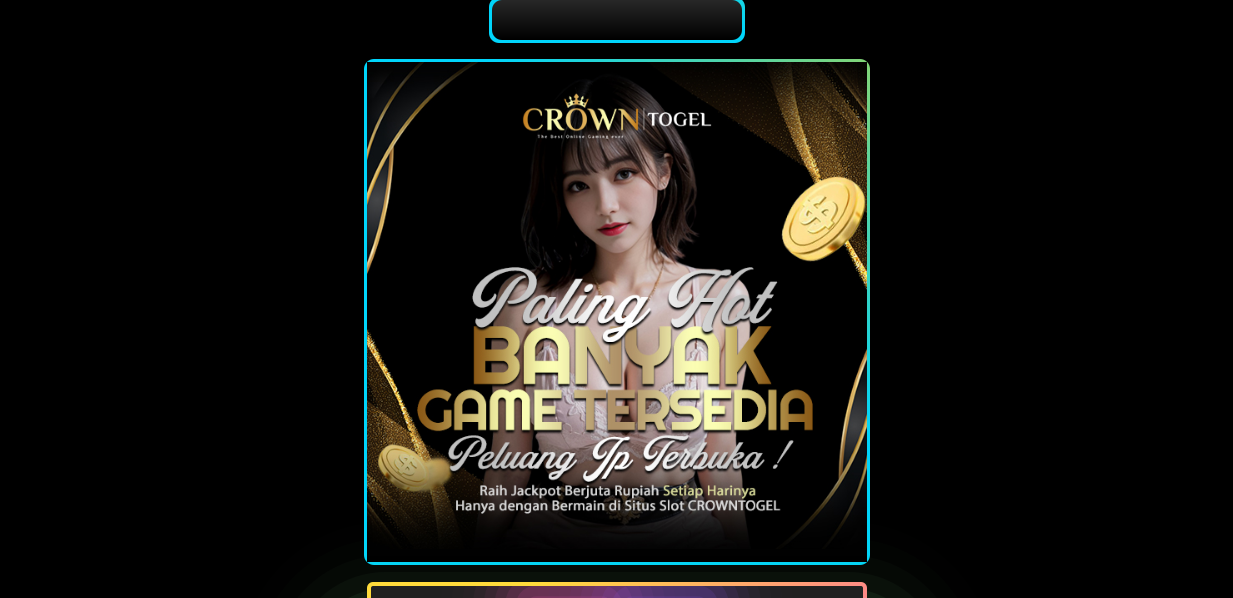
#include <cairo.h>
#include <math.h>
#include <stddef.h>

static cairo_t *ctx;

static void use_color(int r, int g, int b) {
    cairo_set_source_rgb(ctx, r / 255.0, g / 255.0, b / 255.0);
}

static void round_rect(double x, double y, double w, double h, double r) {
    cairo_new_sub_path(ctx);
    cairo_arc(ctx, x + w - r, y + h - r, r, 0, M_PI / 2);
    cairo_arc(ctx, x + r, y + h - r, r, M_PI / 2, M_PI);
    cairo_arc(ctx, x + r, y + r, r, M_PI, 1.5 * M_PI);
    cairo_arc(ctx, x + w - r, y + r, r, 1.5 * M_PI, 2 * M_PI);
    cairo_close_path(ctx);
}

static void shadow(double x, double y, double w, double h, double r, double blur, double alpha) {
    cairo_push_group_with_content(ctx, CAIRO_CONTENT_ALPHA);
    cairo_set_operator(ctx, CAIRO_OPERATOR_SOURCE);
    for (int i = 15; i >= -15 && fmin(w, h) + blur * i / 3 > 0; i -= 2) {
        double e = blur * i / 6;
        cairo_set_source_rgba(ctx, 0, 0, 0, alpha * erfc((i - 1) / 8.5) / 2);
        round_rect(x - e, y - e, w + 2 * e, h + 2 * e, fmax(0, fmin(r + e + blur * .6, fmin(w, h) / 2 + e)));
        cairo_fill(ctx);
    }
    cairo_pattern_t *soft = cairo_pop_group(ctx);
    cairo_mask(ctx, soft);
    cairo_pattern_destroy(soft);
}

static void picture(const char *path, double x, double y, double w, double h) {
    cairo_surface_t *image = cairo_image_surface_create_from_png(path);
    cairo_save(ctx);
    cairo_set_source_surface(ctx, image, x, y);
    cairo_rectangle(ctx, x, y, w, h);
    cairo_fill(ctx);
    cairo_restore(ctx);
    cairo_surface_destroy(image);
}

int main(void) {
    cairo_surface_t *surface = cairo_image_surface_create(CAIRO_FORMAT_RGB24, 1233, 598);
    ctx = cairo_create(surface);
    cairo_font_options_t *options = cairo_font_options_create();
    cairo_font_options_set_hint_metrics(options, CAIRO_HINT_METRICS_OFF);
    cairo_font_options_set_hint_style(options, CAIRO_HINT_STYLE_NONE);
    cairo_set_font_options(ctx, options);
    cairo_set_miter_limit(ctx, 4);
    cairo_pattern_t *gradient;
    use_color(0, 0, 0);
    cairo_paint(ctx);
    gradient = cairo_pattern_create_linear(734, 288, 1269, -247);
    cairo_pattern_add_color_stop_rgba(gradient, 0, 0, 0.835, 0.984, 1);
    cairo_pattern_add_color_stop_rgba(gradient, 0.25, 0, 0.835, 0.984, 1);
    cairo_pattern_add_color_stop_rgba(gradient, 0.5, 0.859, 0.835, 0.114, 1);
    cairo_pattern_add_color_stop_rgba(gradient, 0.75, 0.859, 0.835, 0.114, 1);
    cairo_pattern_add_color_stop_rgba(gradient, 1, 0, 0.106, 0.141, 1);
    cairo_set_source(ctx, gradient);
    cairo_pattern_destroy(gradient);
    round_rect(489, -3, 256, 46, 10);
    cairo_fill(ctx);
    gradient = cairo_pattern_create_linear(617, 40, 617, 0);
    cairo_pattern_add_color_stop_rgba(gradient, 0, 0, 0, 0, 1);
    cairo_pattern_add_color_stop_rgba(gradient, 1, 0.153, 0.153, 0.153, 1);
    cairo_set_source(ctx, gradient);
    cairo_pattern_destroy(gradient);
    round_rect(492, 0, 250, 40, 10);
    cairo_fill(ctx);
    gradient = cairo_pattern_create_linear(744, 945, 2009, -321);
    cairo_pattern_add_color_stop_rgba(gradient, 0, 0, 0.835, 0.984, 1);
    cairo_pattern_add_color_stop_rgba(gradient, 0.25, 0, 0.835, 0.984, 1);
    cairo_pattern_add_color_stop_rgba(gradient, 0.5, 0.859, 0.835, 0.114, 1);
    cairo_pattern_add_color_stop_rgba(gradient, 0.75, 0.859, 0.835, 0.114, 1);
    cairo_pattern_add_color_stop_rgba(gradient, 1, 0, 0.106, 0.141, 1);
    cairo_set_source(ctx, gradient);
    cairo_pattern_destroy(gradient);
    round_rect(364, 59, 506, 506, 10);
    cairo_fill(ctx);
    use_color(110, 190, 113);
    shadow(364, 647, 506, 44, 0, 50, 1);
    gradient = cairo_pattern_create_linear(617, 562, 617, 62);
    cairo_pattern_add_color_stop_rgba(gradient, 0, 0, 0, 0, 1);
    cairo_pattern_add_color_stop_rgba(gradient, 1, 0.153, 0.153, 0.153, 1);
    cairo_set_source(ctx, gradient);
    cairo_pattern_destroy(gradient);
    cairo_rectangle(ctx, 367, 549, 500, 13);
    cairo_fill(ctx);
    picture("img1.png", 367, 62, 500, 487);
    gradient = cairo_pattern_create_linear(739, 241, 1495, 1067);
    cairo_pattern_add_color_stop_rgba(gradient, 0.1, 1, 0.859, 0.231, 1);
    cairo_pattern_add_color_stop_rgba(gradient, 0.45, 0.996, 0.325, 0.733, 1);
    cairo_pattern_add_color_stop_rgba(gradient, 0.67, 0.561, 0.318, 0.918, 1);
    cairo_pattern_add_color_stop_rgba(gradient, 0.87, 0, 0.267, 1, 1);
    cairo_set_source(ctx, gradient);
    cairo_pattern_destroy(gradient);
    round_rect(367, 582, 500, 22, 6);
    cairo_fill(ctx);
    use_color(33, 33, 33);
    round_rect(371, 586, 492, 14, 2);
    cairo_fill(ctx);
    cairo_save(ctx);
    round_rect(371, 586, 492, 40, 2);
    cairo_clip(ctx);
    use_color(254, 83, 186);
    shadow(521, 591, 96, 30, 0, 32, 0.64);
    use_color(142, 81, 234);
    shadow(617, 591, 96, 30, 0, 32, 0.71);
    cairo_restore(ctx);
    cairo_surface_write_to_png(surface, "result.png");
    cairo_font_options_destroy(options);
    cairo_destroy(ctx);
    cairo_surface_destroy(surface);
    return 0;
}
